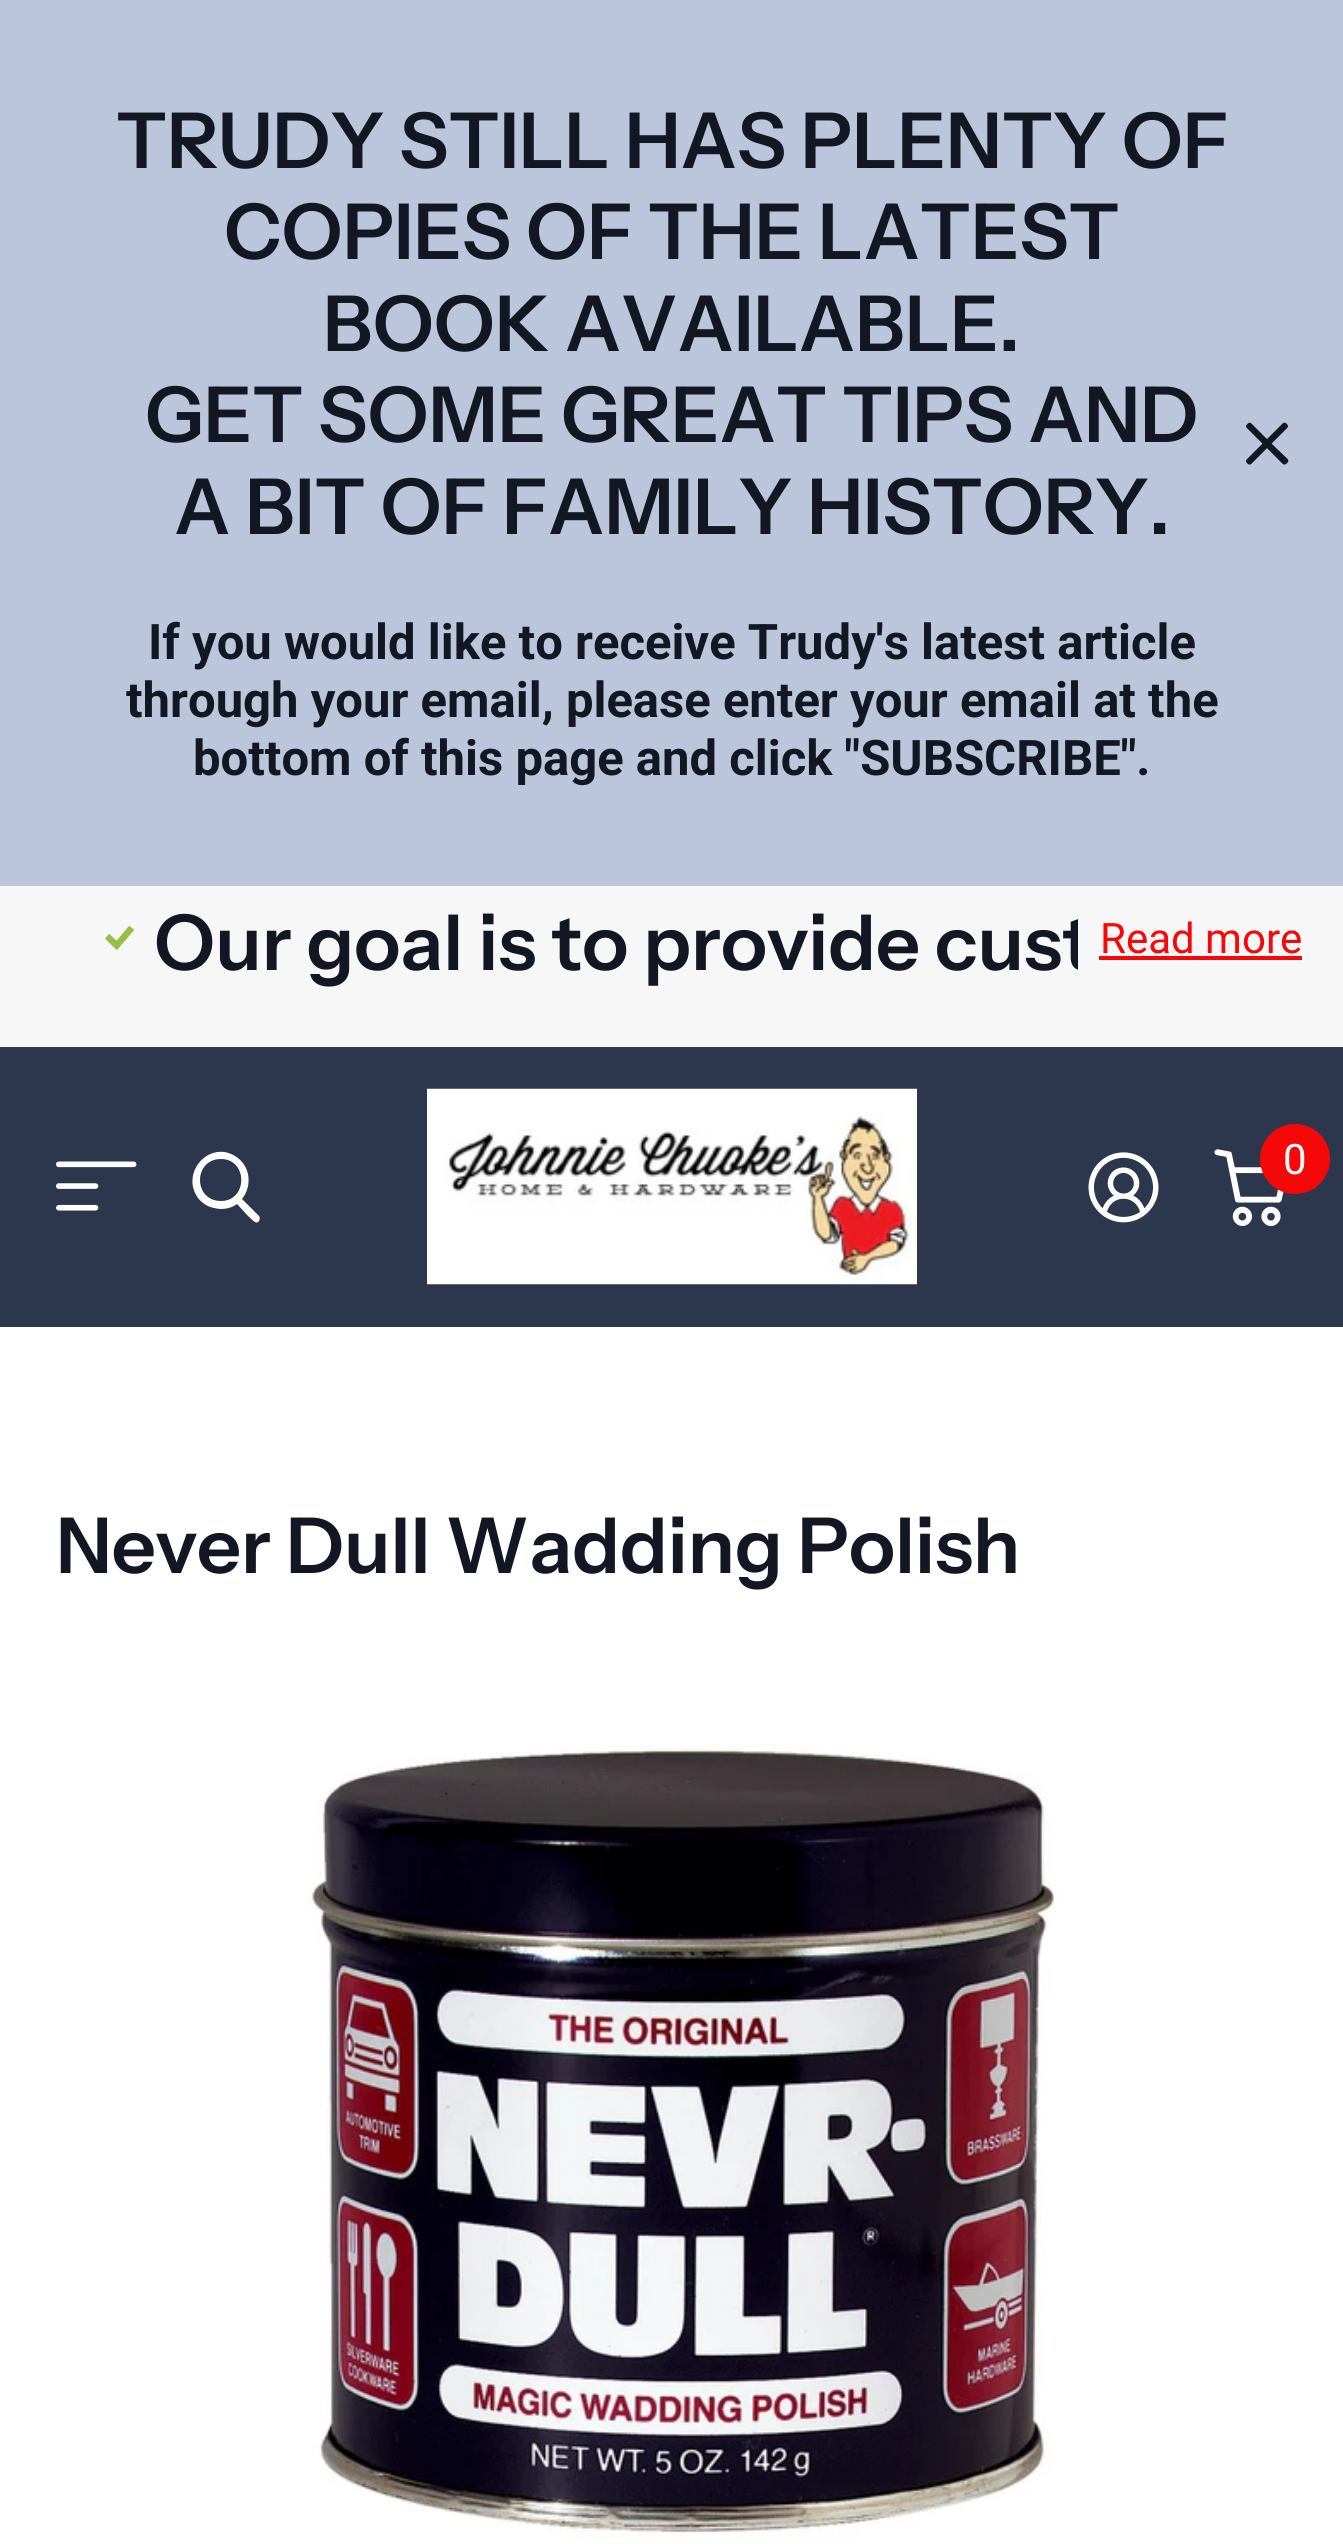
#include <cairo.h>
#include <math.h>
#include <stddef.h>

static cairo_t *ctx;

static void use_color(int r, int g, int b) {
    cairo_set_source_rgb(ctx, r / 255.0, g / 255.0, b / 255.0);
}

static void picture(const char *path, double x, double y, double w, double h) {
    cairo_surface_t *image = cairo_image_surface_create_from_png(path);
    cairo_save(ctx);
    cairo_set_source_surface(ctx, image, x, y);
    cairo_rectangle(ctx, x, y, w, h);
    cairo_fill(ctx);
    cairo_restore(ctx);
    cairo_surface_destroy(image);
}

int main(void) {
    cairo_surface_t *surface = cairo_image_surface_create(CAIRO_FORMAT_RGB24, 1343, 2544);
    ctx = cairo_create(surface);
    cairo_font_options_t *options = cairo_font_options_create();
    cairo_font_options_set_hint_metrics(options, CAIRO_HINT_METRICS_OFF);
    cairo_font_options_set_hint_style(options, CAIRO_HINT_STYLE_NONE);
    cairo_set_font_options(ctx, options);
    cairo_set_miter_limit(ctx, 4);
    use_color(255, 255, 255);
    cairo_paint(ctx);
    use_color(187, 198, 220);
    cairo_rectangle(ctx, 0, 0, 1343, 886);
    cairo_fill(ctx);
    cairo_select_font_face(ctx, "Instrument Sans SemiBold", CAIRO_FONT_SLANT_NORMAL, CAIRO_FONT_WEIGHT_NORMAL);
    cairo_set_font_size(ctx, 77);
    use_color(18, 23, 35);
    cairo_move_to(ctx, 116, 168);
    cairo_show_text(ctx, "TRUDY STILL HAS PLENTY OF");
    cairo_move_to(ctx, 224, 259);
    cairo_show_text(ctx, "COPIES OF THE LATEST");
    cairo_move_to(ctx, 323, 351);
    cairo_show_text(ctx, "BOOK AVAILABLE.");
    cairo_move_to(ctx, 145, 442);
    cairo_show_text(ctx, "GET SOME GREAT TIPS AND");
    cairo_move_to(ctx, 174, 534);
    cairo_show_text(ctx, "A BIT OF FAMILY HISTORY.");
    cairo_select_font_face(ctx, "Roboto", CAIRO_FONT_SLANT_NORMAL, CAIRO_FONT_WEIGHT_BOLD);
    cairo_set_font_size(ctx, 49);
    cairo_move_to(ctx, 148, 659);
    cairo_show_text(ctx, "If you would like to receive Trudy's latest article");
    cairo_move_to(ctx, 126, 717);
    cairo_show_text(ctx, "through your email, please enter your email at the");
    cairo_move_to(ctx, 193, 775);
    cairo_show_text(ctx, "bottom of this page and click \"SUBSCRIBE\".");
    picture("img1.png", 1245, 422, 44, 43);
    use_color(247, 247, 247);
    cairo_rectangle(ctx, 0, 886, 1343, 161);
    cairo_fill(ctx);
    picture("img2.png", 105, 926, 29, 24);
    cairo_save(ctx);
    cairo_rectangle(ctx, 154, 900, 924, 133);
    cairo_clip(ctx);
    cairo_select_font_face(ctx, "Instrument Sans SemiBold", CAIRO_FONT_SLANT_NORMAL, CAIRO_FONT_WEIGHT_NORMAL);
    cairo_set_font_size(ctx, 77);
    use_color(18, 23, 35);
    cairo_move_to(ctx, 154, 970);
    cairo_show_text(ctx, "Our goal is to provide cust");
    cairo_restore(ctx);
    cairo_select_font_face(ctx, "Roboto", CAIRO_FONT_SLANT_NORMAL, CAIRO_FONT_WEIGHT_NORMAL);
    cairo_set_font_size(ctx, 42);
    use_color(247, 8, 8);
    cairo_move_to(ctx, 1100, 953);
    cairo_show_text(ctx, "Read more");
    cairo_rectangle(ctx, 1099, 956, 203, 4);
    cairo_fill(ctx);
    use_color(44, 55, 77);
    cairo_rectangle(ctx, 0, 1047, 1343, 280);
    cairo_fill(ctx);
    picture("img3.png", 56, 1161, 81, 50);
    use_color(255, 255, 255);
    cairo_new_path(ctx);
    cairo_move_to(ctx, 259, 1216);
    cairo_line_to(ctx, 242, 1199);
    cairo_curve_to(ctx, 253, 1185, 250, 1165, 235, 1156);
    cairo_curve_to(ctx, 209, 1140, 180, 1173, 198, 1198);
    cairo_curve_to(ctx, 202, 1203, 208, 1207, 214, 1208);
    cairo_curve_to(ctx, 222, 1210, 230, 1209, 237, 1204);
    cairo_line_to(ctx, 248, 1216);
    cairo_curve_to(ctx, 250, 1217, 256, 1226, 259, 1221);
    cairo_curve_to(ctx, 260, 1219, 260, 1217, 259, 1216);
    cairo_close_path(ctx);
    cairo_move_to(ctx, 221, 1201);
    cairo_curve_to(ctx, 193, 1201, 193, 1159, 221, 1159);
    cairo_curve_to(ctx, 248, 1159, 248, 1201, 221, 1201);
    cairo_close_path(ctx);
    cairo_fill(ctx);
    picture("img4.png", 427, 1088, 490, 197);
    picture("img5.png", 1088, 1152, 71, 71);
    picture("img6.png", 1214, 1149, 70, 77);
    use_color(247, 8, 8);
    cairo_arc(ctx, 1295, 1159, 35, 0, 2 * M_PI);
    cairo_fill(ctx);
    use_color(255, 255, 255);
    cairo_move_to(ctx, 1283, 1174);
    cairo_show_text(ctx, "0");
    cairo_select_font_face(ctx, "Instrument Sans SemiBold", CAIRO_FONT_SLANT_NORMAL, CAIRO_FONT_WEIGHT_NORMAL);
    cairo_set_font_size(ctx, 77);
    use_color(18, 23, 35);
    cairo_move_to(ctx, 56, 1573);
    cairo_show_text(ctx, "Never Dull Wadding Polish");
    picture("img7.png", 308, 1745, 749, 794);
    cairo_surface_write_to_png(surface, "result.png");
    cairo_font_options_destroy(options);
    cairo_destroy(ctx);
    cairo_surface_destroy(surface);
    return 0;
}
